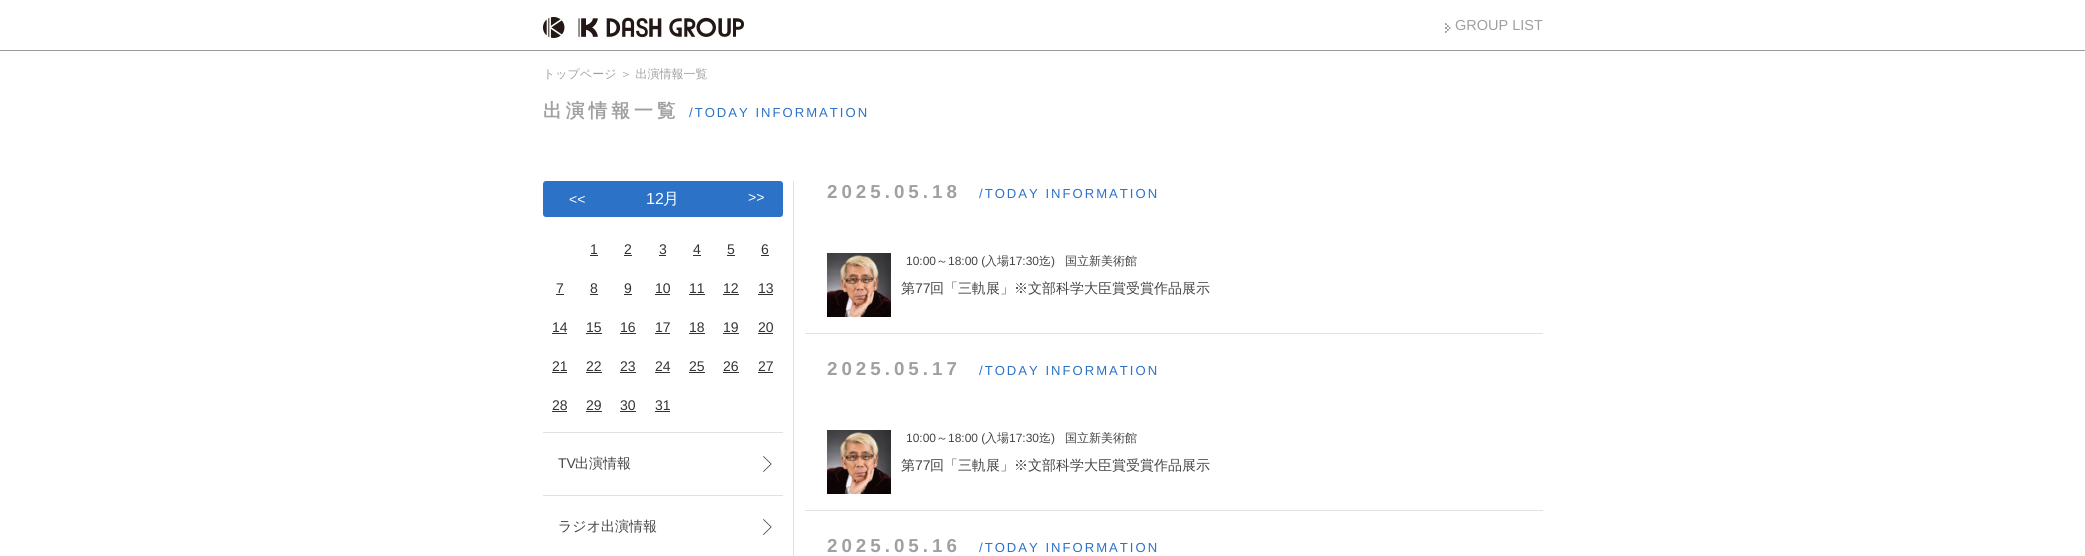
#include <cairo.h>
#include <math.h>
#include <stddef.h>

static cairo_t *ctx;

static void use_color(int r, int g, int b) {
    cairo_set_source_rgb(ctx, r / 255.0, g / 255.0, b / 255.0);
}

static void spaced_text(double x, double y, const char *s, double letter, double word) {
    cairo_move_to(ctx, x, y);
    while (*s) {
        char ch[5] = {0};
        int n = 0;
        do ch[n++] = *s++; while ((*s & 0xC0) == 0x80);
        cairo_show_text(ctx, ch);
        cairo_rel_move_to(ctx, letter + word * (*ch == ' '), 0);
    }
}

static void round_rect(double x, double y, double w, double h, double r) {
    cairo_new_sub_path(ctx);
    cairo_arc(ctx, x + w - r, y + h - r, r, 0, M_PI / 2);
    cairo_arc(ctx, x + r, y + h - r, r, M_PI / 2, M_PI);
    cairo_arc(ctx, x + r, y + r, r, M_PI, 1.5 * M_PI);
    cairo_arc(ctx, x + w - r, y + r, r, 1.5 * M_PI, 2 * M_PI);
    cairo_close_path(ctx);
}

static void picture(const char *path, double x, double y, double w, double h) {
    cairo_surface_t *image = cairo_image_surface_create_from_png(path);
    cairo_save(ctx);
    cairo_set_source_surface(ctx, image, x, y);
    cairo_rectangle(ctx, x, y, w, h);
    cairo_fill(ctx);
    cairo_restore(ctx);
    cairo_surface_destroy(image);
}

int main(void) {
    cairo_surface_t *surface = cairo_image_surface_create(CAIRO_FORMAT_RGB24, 2085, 556);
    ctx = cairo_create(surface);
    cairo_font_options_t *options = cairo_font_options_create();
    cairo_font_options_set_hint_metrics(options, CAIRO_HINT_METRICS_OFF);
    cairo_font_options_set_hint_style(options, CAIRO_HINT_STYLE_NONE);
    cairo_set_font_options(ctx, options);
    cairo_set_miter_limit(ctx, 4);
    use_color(255, 255, 255);
    cairo_paint(ctx);
    picture("img1.png", 543, 17, 201, 21);
    picture("img2.png", 1445, 23, 6, 10);
    cairo_select_font_face(ctx, "Liberation Sans", CAIRO_FONT_SLANT_NORMAL, CAIRO_FONT_WEIGHT_NORMAL);
    cairo_set_font_size(ctx, 14.5);
    use_color(160, 160, 160);
    cairo_move_to(ctx, 1455, 30);
    cairo_show_text(ctx, "GROUP LIST");
    use_color(154, 154, 154);
    cairo_rectangle(ctx, 0, 50, 2085, 1);
    cairo_fill(ctx);
    cairo_select_font_face(ctx, "WenQuanYi Zen Hei Medium", CAIRO_FONT_SLANT_NORMAL, CAIRO_FONT_WEIGHT_NORMAL);
    cairo_set_font_size(ctx, 12);
    use_color(160, 160, 160);
    cairo_move_to(ctx, 543, 78);
    cairo_show_text(ctx, "トップページ ＞ 出演情報一覧");
    cairo_select_font_face(ctx, "WenQuanYi Zen Hei", CAIRO_FONT_SLANT_NORMAL, CAIRO_FONT_WEIGHT_BOLD);
    cairo_set_font_size(ctx, 18.75);
    spaced_text(543, 117, "出演情報一覧", 4, 0);
    cairo_select_font_face(ctx, "Liberation Sans", CAIRO_FONT_SLANT_NORMAL, CAIRO_FONT_WEIGHT_NORMAL);
    cairo_set_font_size(ctx, 13.1);
    use_color(44, 114, 199);
    spaced_text(689, 117, "/TODAY INFORMATION", 2, 0);
    use_color(228, 224, 225);
    cairo_rectangle(ctx, 543, 432, 240, 1);
    cairo_fill(ctx);
    use_color(44, 114, 199);
    round_rect(543, 181, 240, 36, 3);
    cairo_fill(ctx);
    cairo_set_font_size(ctx, 14);
    use_color(255, 255, 255);
    cairo_move_to(ctx, 569, 204);
    cairo_show_text(ctx, "<<");
    cairo_set_font_size(ctx, 16);
    cairo_move_to(ctx, 646, 204);
    cairo_show_text(ctx, "12");
    cairo_select_font_face(ctx, "WenQuanYi Zen Hei Medium", CAIRO_FONT_SLANT_NORMAL, CAIRO_FONT_WEIGHT_NORMAL);
    cairo_move_to(ctx, 663, 204);
    cairo_show_text(ctx, "月");
    cairo_select_font_face(ctx, "Liberation Sans", CAIRO_FONT_SLANT_NORMAL, CAIRO_FONT_WEIGHT_NORMAL);
    cairo_set_font_size(ctx, 14);
    cairo_move_to(ctx, 748, 202);
    cairo_show_text(ctx, ">>");
    use_color(51, 51, 51);
    cairo_move_to(ctx, 590, 254);
    cairo_show_text(ctx, "1");
    cairo_rectangle(ctx, 590, 255, 8, 1);
    cairo_fill(ctx);
    cairo_move_to(ctx, 624, 254);
    cairo_show_text(ctx, "2");
    cairo_rectangle(ctx, 624, 255, 8, 1);
    cairo_fill(ctx);
    cairo_move_to(ctx, 659, 254);
    cairo_show_text(ctx, "3");
    cairo_rectangle(ctx, 659, 255, 7, 1);
    cairo_fill(ctx);
    cairo_move_to(ctx, 693, 254);
    cairo_show_text(ctx, "4");
    cairo_rectangle(ctx, 693, 255, 8, 1);
    cairo_fill(ctx);
    cairo_move_to(ctx, 727, 254);
    cairo_show_text(ctx, "5");
    cairo_rectangle(ctx, 727, 255, 8, 1);
    cairo_fill(ctx);
    cairo_move_to(ctx, 761, 254);
    cairo_show_text(ctx, "6");
    cairo_rectangle(ctx, 761, 255, 8, 1);
    cairo_fill(ctx);
    cairo_move_to(ctx, 556, 293);
    cairo_show_text(ctx, "7");
    cairo_rectangle(ctx, 556, 294, 8, 1);
    cairo_fill(ctx);
    cairo_move_to(ctx, 590, 293);
    cairo_show_text(ctx, "8");
    cairo_rectangle(ctx, 590, 294, 8, 1);
    cairo_fill(ctx);
    cairo_move_to(ctx, 624, 293);
    cairo_show_text(ctx, "9");
    cairo_rectangle(ctx, 624, 294, 8, 1);
    cairo_fill(ctx);
    cairo_move_to(ctx, 655, 293);
    cairo_show_text(ctx, "10");
    cairo_rectangle(ctx, 655, 294, 15, 1);
    cairo_fill(ctx);
    cairo_move_to(ctx, 689, 293);
    cairo_show_text(ctx, "11");
    cairo_rectangle(ctx, 689, 294, 16, 1);
    cairo_fill(ctx);
    cairo_move_to(ctx, 723, 293);
    cairo_show_text(ctx, "12");
    cairo_rectangle(ctx, 723, 294, 16, 1);
    cairo_fill(ctx);
    cairo_move_to(ctx, 758, 293);
    cairo_show_text(ctx, "13");
    cairo_rectangle(ctx, 758, 294, 15, 1);
    cairo_fill(ctx);
    cairo_move_to(ctx, 552, 332);
    cairo_show_text(ctx, "14");
    cairo_rectangle(ctx, 552, 333, 15, 1);
    cairo_fill(ctx);
    cairo_move_to(ctx, 586, 332);
    cairo_show_text(ctx, "15");
    cairo_rectangle(ctx, 586, 333, 16, 1);
    cairo_fill(ctx);
    cairo_move_to(ctx, 620, 332);
    cairo_show_text(ctx, "16");
    cairo_rectangle(ctx, 620, 333, 16, 1);
    cairo_fill(ctx);
    cairo_move_to(ctx, 655, 332);
    cairo_show_text(ctx, "17");
    cairo_rectangle(ctx, 655, 333, 15, 1);
    cairo_fill(ctx);
    cairo_move_to(ctx, 689, 332);
    cairo_show_text(ctx, "18");
    cairo_rectangle(ctx, 689, 333, 16, 1);
    cairo_fill(ctx);
    cairo_move_to(ctx, 723, 332);
    cairo_show_text(ctx, "19");
    cairo_rectangle(ctx, 723, 333, 16, 1);
    cairo_fill(ctx);
    cairo_move_to(ctx, 758, 332);
    cairo_show_text(ctx, "20");
    cairo_rectangle(ctx, 758, 333, 15, 1);
    cairo_fill(ctx);
    cairo_move_to(ctx, 552, 371);
    cairo_show_text(ctx, "21");
    cairo_rectangle(ctx, 552, 372, 15, 1);
    cairo_fill(ctx);
    cairo_move_to(ctx, 586, 371);
    cairo_show_text(ctx, "22");
    cairo_rectangle(ctx, 586, 372, 16, 1);
    cairo_fill(ctx);
    cairo_move_to(ctx, 620, 371);
    cairo_show_text(ctx, "23");
    cairo_rectangle(ctx, 620, 372, 16, 1);
    cairo_fill(ctx);
    cairo_move_to(ctx, 655, 371);
    cairo_show_text(ctx, "24");
    cairo_rectangle(ctx, 655, 372, 15, 1);
    cairo_fill(ctx);
    cairo_move_to(ctx, 689, 371);
    cairo_show_text(ctx, "25");
    cairo_rectangle(ctx, 689, 372, 16, 1);
    cairo_fill(ctx);
    cairo_move_to(ctx, 723, 371);
    cairo_show_text(ctx, "26");
    cairo_rectangle(ctx, 723, 372, 16, 1);
    cairo_fill(ctx);
    cairo_move_to(ctx, 758, 371);
    cairo_show_text(ctx, "27");
    cairo_rectangle(ctx, 758, 372, 15, 1);
    cairo_fill(ctx);
    cairo_move_to(ctx, 552, 410);
    cairo_show_text(ctx, "28");
    cairo_rectangle(ctx, 552, 411, 15, 1);
    cairo_fill(ctx);
    cairo_move_to(ctx, 586, 410);
    cairo_show_text(ctx, "29");
    cairo_rectangle(ctx, 586, 411, 16, 1);
    cairo_fill(ctx);
    cairo_move_to(ctx, 620, 410);
    cairo_show_text(ctx, "30");
    cairo_rectangle(ctx, 620, 411, 16, 1);
    cairo_fill(ctx);
    cairo_move_to(ctx, 655, 410);
    cairo_show_text(ctx, "31");
    cairo_rectangle(ctx, 655, 411, 15, 1);
    cairo_fill(ctx);
    picture("img3.png", 763, 456, 9, 16);
    use_color(228, 224, 225);
    cairo_rectangle(ctx, 543, 495, 240, 1);
    cairo_fill(ctx);
    use_color(68, 68, 68);
    cairo_move_to(ctx, 558, 468);
    cairo_show_text(ctx, "TV");
    cairo_select_font_face(ctx, "WenQuanYi Zen Hei Medium", CAIRO_FONT_SLANT_NORMAL, CAIRO_FONT_WEIGHT_NORMAL);
    cairo_move_to(ctx, 575, 468);
    cairo_show_text(ctx, "出演情報");
    picture("img3.png", 763, 519, 9, 16);
    cairo_move_to(ctx, 558, 531);
    cairo_show_text(ctx, "ラジオ出演情報");
    use_color(228, 224, 225);
    cairo_rectangle(ctx, 793, 181, 1, 375);
    cairo_fill(ctx);
    cairo_select_font_face(ctx, "Liberation Sans", CAIRO_FONT_SLANT_NORMAL, CAIRO_FONT_WEIGHT_BOLD);
    cairo_set_font_size(ctx, 18.75);
    use_color(160, 160, 160);
    spaced_text(827, 198, "2025.05.18", 4, 0);
    cairo_select_font_face(ctx, "Liberation Sans", CAIRO_FONT_SLANT_NORMAL, CAIRO_FONT_WEIGHT_NORMAL);
    cairo_set_font_size(ctx, 13.1);
    use_color(44, 114, 199);
    spaced_text(979, 198, "/TODAY INFORMATION", 2, 0);
    use_color(228, 224, 225);
    cairo_rectangle(ctx, 805, 333, 738, 1);
    cairo_fill(ctx);
    picture("img4.png", 827, 253, 64, 64);
    cairo_set_font_size(ctx, 12);
    use_color(68, 68, 68);
    cairo_move_to(ctx, 906, 265);
    cairo_show_text(ctx, "10:00");
    cairo_select_font_face(ctx, "WenQuanYi Zen Hei Medium", CAIRO_FONT_SLANT_NORMAL, CAIRO_FONT_WEIGHT_NORMAL);
    cairo_move_to(ctx, 936, 265);
    cairo_show_text(ctx, "～");
    cairo_select_font_face(ctx, "Liberation Sans", CAIRO_FONT_SLANT_NORMAL, CAIRO_FONT_WEIGHT_NORMAL);
    cairo_move_to(ctx, 948, 265);
    cairo_show_text(ctx, "18:00 (");
    cairo_select_font_face(ctx, "WenQuanYi Zen Hei Medium", CAIRO_FONT_SLANT_NORMAL, CAIRO_FONT_WEIGHT_NORMAL);
    cairo_move_to(ctx, 985, 265);
    cairo_show_text(ctx, "入場");
    cairo_select_font_face(ctx, "Liberation Sans", CAIRO_FONT_SLANT_NORMAL, CAIRO_FONT_WEIGHT_NORMAL);
    cairo_move_to(ctx, 1009, 265);
    cairo_show_text(ctx, "17:30");
    cairo_select_font_face(ctx, "WenQuanYi Zen Hei Medium", CAIRO_FONT_SLANT_NORMAL, CAIRO_FONT_WEIGHT_NORMAL);
    cairo_move_to(ctx, 1039, 265);
    cairo_show_text(ctx, "迄");
    cairo_select_font_face(ctx, "Liberation Sans", CAIRO_FONT_SLANT_NORMAL, CAIRO_FONT_WEIGHT_NORMAL);
    cairo_move_to(ctx, 1051, 265);
    cairo_show_text(ctx, ")");
    cairo_select_font_face(ctx, "WenQuanYi Zen Hei Medium", CAIRO_FONT_SLANT_NORMAL, CAIRO_FONT_WEIGHT_NORMAL);
    cairo_move_to(ctx, 1065, 265);
    cairo_show_text(ctx, "国立新美術館");
    cairo_set_font_size(ctx, 14);
    cairo_move_to(ctx, 901, 293);
    cairo_show_text(ctx, "第");
    cairo_select_font_face(ctx, "Liberation Sans", CAIRO_FONT_SLANT_NORMAL, CAIRO_FONT_WEIGHT_NORMAL);
    cairo_move_to(ctx, 915, 293);
    cairo_show_text(ctx, "77");
    cairo_select_font_face(ctx, "WenQuanYi Zen Hei Medium", CAIRO_FONT_SLANT_NORMAL, CAIRO_FONT_WEIGHT_NORMAL);
    cairo_move_to(ctx, 930, 293);
    cairo_show_text(ctx, "回「三軌展」※文部科学大臣賞受賞作品展示");
    cairo_select_font_face(ctx, "Liberation Sans", CAIRO_FONT_SLANT_NORMAL, CAIRO_FONT_WEIGHT_BOLD);
    cairo_set_font_size(ctx, 18.75);
    use_color(160, 160, 160);
    spaced_text(827, 375, "2025.05.17", 4, 0);
    cairo_select_font_face(ctx, "Liberation Sans", CAIRO_FONT_SLANT_NORMAL, CAIRO_FONT_WEIGHT_NORMAL);
    cairo_set_font_size(ctx, 13.1);
    use_color(44, 114, 199);
    spaced_text(979, 375, "/TODAY INFORMATION", 2, 0);
    use_color(228, 224, 225);
    cairo_rectangle(ctx, 805, 510, 738, 1);
    cairo_fill(ctx);
    picture("img4.png", 827, 430, 64, 64);
    cairo_set_font_size(ctx, 12);
    use_color(68, 68, 68);
    cairo_move_to(ctx, 906, 442);
    cairo_show_text(ctx, "10:00");
    cairo_select_font_face(ctx, "WenQuanYi Zen Hei Medium", CAIRO_FONT_SLANT_NORMAL, CAIRO_FONT_WEIGHT_NORMAL);
    cairo_move_to(ctx, 936, 442);
    cairo_show_text(ctx, "～");
    cairo_select_font_face(ctx, "Liberation Sans", CAIRO_FONT_SLANT_NORMAL, CAIRO_FONT_WEIGHT_NORMAL);
    cairo_move_to(ctx, 948, 442);
    cairo_show_text(ctx, "18:00 (");
    cairo_select_font_face(ctx, "WenQuanYi Zen Hei Medium", CAIRO_FONT_SLANT_NORMAL, CAIRO_FONT_WEIGHT_NORMAL);
    cairo_move_to(ctx, 985, 442);
    cairo_show_text(ctx, "入場");
    cairo_select_font_face(ctx, "Liberation Sans", CAIRO_FONT_SLANT_NORMAL, CAIRO_FONT_WEIGHT_NORMAL);
    cairo_move_to(ctx, 1009, 442);
    cairo_show_text(ctx, "17:30");
    cairo_select_font_face(ctx, "WenQuanYi Zen Hei Medium", CAIRO_FONT_SLANT_NORMAL, CAIRO_FONT_WEIGHT_NORMAL);
    cairo_move_to(ctx, 1039, 442);
    cairo_show_text(ctx, "迄");
    cairo_select_font_face(ctx, "Liberation Sans", CAIRO_FONT_SLANT_NORMAL, CAIRO_FONT_WEIGHT_NORMAL);
    cairo_move_to(ctx, 1051, 442);
    cairo_show_text(ctx, ")");
    cairo_select_font_face(ctx, "WenQuanYi Zen Hei Medium", CAIRO_FONT_SLANT_NORMAL, CAIRO_FONT_WEIGHT_NORMAL);
    cairo_move_to(ctx, 1065, 442);
    cairo_show_text(ctx, "国立新美術館");
    cairo_set_font_size(ctx, 14);
    cairo_move_to(ctx, 901, 470);
    cairo_show_text(ctx, "第");
    cairo_select_font_face(ctx, "Liberation Sans", CAIRO_FONT_SLANT_NORMAL, CAIRO_FONT_WEIGHT_NORMAL);
    cairo_move_to(ctx, 915, 470);
    cairo_show_text(ctx, "77");
    cairo_select_font_face(ctx, "WenQuanYi Zen Hei Medium", CAIRO_FONT_SLANT_NORMAL, CAIRO_FONT_WEIGHT_NORMAL);
    cairo_move_to(ctx, 930, 470);
    cairo_show_text(ctx, "回「三軌展」※文部科学大臣賞受賞作品展示");
    cairo_select_font_face(ctx, "Liberation Sans", CAIRO_FONT_SLANT_NORMAL, CAIRO_FONT_WEIGHT_BOLD);
    cairo_set_font_size(ctx, 18.75);
    use_color(160, 160, 160);
    spaced_text(827, 552, "2025.05.16", 4, 0);
    cairo_select_font_face(ctx, "Liberation Sans", CAIRO_FONT_SLANT_NORMAL, CAIRO_FONT_WEIGHT_NORMAL);
    cairo_set_font_size(ctx, 13.1);
    use_color(44, 114, 199);
    spaced_text(979, 552, "/TODAY INFORMATION", 2, 0);
    cairo_surface_write_to_png(surface, "result.png");
    cairo_font_options_destroy(options);
    cairo_destroy(ctx);
    cairo_surface_destroy(surface);
    return 0;
}
